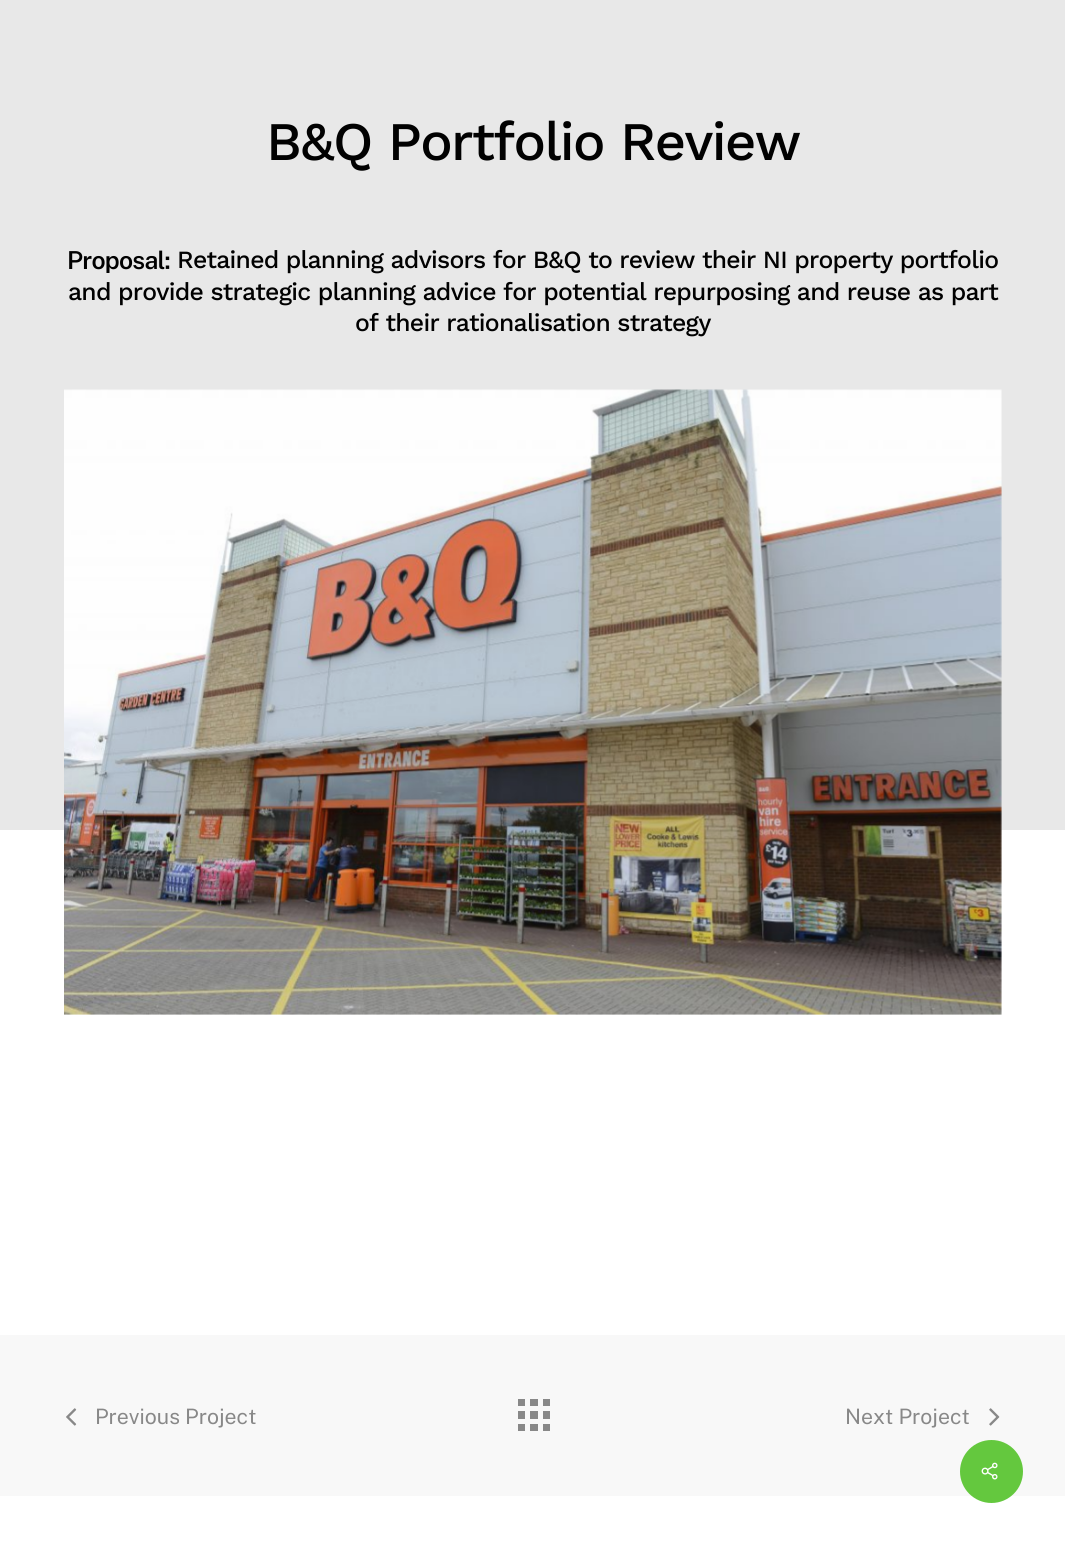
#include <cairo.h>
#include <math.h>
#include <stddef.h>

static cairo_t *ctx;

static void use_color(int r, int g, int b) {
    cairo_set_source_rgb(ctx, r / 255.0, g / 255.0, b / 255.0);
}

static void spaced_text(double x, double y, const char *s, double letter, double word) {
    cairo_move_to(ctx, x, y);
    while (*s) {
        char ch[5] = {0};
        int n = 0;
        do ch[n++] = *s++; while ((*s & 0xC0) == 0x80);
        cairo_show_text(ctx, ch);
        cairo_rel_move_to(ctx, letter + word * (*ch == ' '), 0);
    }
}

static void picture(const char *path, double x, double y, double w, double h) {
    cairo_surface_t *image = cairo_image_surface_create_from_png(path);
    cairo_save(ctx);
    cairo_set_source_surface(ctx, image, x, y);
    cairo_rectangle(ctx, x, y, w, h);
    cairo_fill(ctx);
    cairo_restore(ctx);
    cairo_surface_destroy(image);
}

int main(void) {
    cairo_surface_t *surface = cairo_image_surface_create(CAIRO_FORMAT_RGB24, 1065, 1544);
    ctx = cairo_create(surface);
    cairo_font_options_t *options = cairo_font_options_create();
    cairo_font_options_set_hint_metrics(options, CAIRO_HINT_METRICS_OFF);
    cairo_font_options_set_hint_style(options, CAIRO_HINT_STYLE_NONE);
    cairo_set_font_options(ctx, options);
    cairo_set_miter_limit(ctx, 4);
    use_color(255, 255, 255);
    cairo_paint(ctx);
    use_color(232, 232, 232);
    cairo_rectangle(ctx, 0, 0, 1065, 830);
    cairo_fill(ctx);
    cairo_select_font_face(ctx, "Work Sans Medium", CAIRO_FONT_SLANT_NORMAL, CAIRO_FONT_WEIGHT_NORMAL);
    cairo_set_font_size(ctx, 54.25);
    use_color(1, 1, 1);
    spaced_text(266, 160, "B&Q Portfolio Review", -1.6, 0);
    cairo_select_font_face(ctx, "Public Sans SemiBold", CAIRO_FONT_SLANT_NORMAL, CAIRO_FONT_WEIGHT_NORMAL);
    cairo_set_font_size(ctx, 24.75);
    spaced_text(67, 269, "Proposal:", -0.75, 0);
    cairo_select_font_face(ctx, "Work Sans Medium", CAIRO_FONT_SLANT_NORMAL, CAIRO_FONT_WEIGHT_NORMAL);
    spaced_text(177, 268, "Retained planning advisors for B&Q to review their NI property portfolio", -0.75, 0);
    spaced_text(68, 300, "and provide strategic planning advice for potential repurposing and reuse as part", -0.75, 0);
    spaced_text(355, 331, "of their rationalisation strategy", -0.75, 0);
    picture("img1.png", 64, 389, 938, 626);
    use_color(248, 248, 248);
    cairo_rectangle(ctx, 0, 1335, 1065, 161);
    cairo_fill(ctx);
    use_color(136, 136, 136);
    cairo_rectangle(ctx, 543, 1424, 7, 7);
    cairo_fill(ctx);
    cairo_rectangle(ctx, 530, 1424, 8, 7);
    cairo_fill(ctx);
    cairo_rectangle(ctx, 518, 1399, 7, 7);
    cairo_fill(ctx);
    cairo_rectangle(ctx, 530, 1399, 8, 7);
    cairo_fill(ctx);
    cairo_rectangle(ctx, 543, 1399, 7, 7);
    cairo_fill(ctx);
    cairo_rectangle(ctx, 543, 1411, 7, 8);
    cairo_fill(ctx);
    cairo_rectangle(ctx, 518, 1424, 7, 7);
    cairo_fill(ctx);
    cairo_rectangle(ctx, 518, 1411, 7, 8);
    cairo_fill(ctx);
    cairo_rectangle(ctx, 530, 1411, 8, 8);
    cairo_fill(ctx);
    picture("img2.png", 66, 1408, 11, 18);
    cairo_select_font_face(ctx, "Public Sans", CAIRO_FONT_SLANT_NORMAL, CAIRO_FONT_WEIGHT_NORMAL);
    cairo_set_font_size(ctx, 21.25);
    cairo_move_to(ctx, 95, 1424);
    cairo_show_text(ctx, "Previous Project");
    cairo_move_to(ctx, 845, 1424);
    cairo_show_text(ctx, "Next Project");
    picture("img3.png", 989, 1408, 11, 18);
    use_color(100, 200, 62);
    cairo_arc(ctx, 991.5, 1471.5, 31.5, 0, 2 * M_PI);
    cairo_fill(ctx);
    picture("img4.png", 981, 1462, 17, 18);
    cairo_surface_write_to_png(surface, "result.png");
    cairo_font_options_destroy(options);
    cairo_destroy(ctx);
    cairo_surface_destroy(surface);
    return 0;
}
